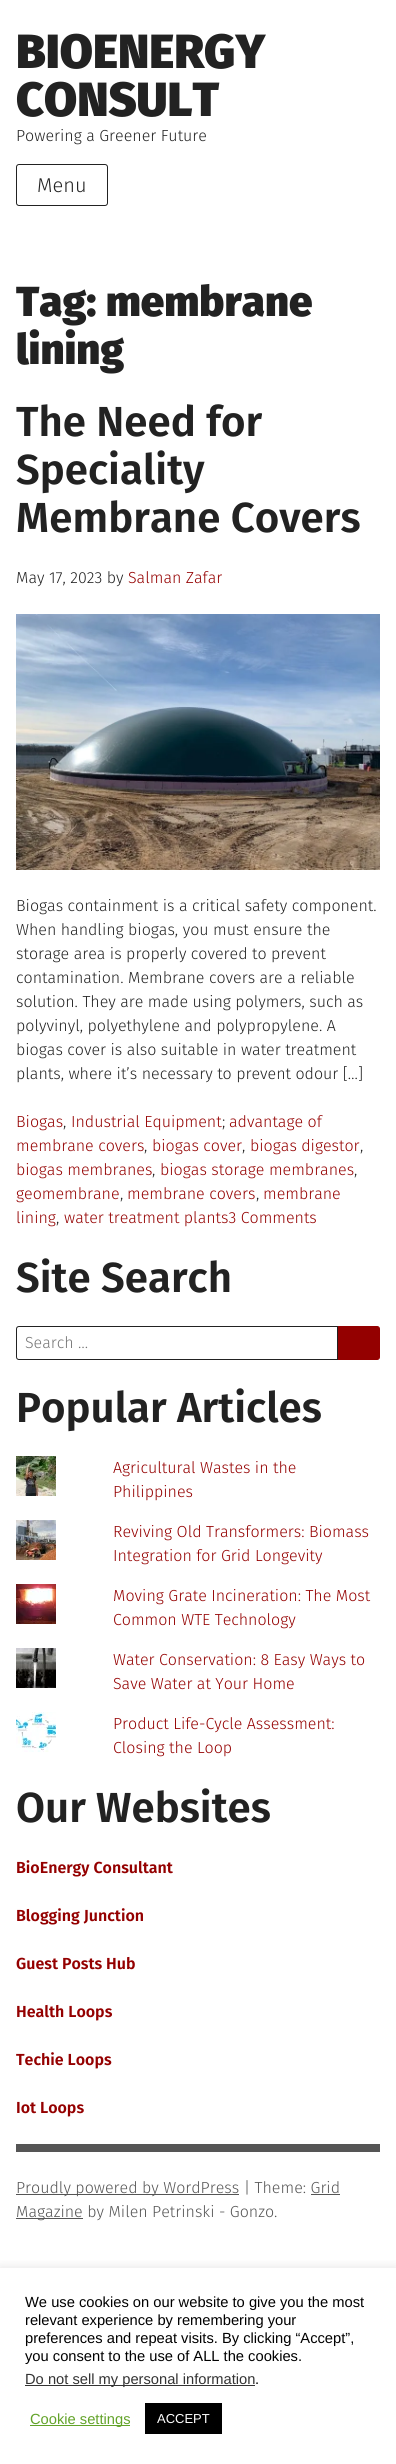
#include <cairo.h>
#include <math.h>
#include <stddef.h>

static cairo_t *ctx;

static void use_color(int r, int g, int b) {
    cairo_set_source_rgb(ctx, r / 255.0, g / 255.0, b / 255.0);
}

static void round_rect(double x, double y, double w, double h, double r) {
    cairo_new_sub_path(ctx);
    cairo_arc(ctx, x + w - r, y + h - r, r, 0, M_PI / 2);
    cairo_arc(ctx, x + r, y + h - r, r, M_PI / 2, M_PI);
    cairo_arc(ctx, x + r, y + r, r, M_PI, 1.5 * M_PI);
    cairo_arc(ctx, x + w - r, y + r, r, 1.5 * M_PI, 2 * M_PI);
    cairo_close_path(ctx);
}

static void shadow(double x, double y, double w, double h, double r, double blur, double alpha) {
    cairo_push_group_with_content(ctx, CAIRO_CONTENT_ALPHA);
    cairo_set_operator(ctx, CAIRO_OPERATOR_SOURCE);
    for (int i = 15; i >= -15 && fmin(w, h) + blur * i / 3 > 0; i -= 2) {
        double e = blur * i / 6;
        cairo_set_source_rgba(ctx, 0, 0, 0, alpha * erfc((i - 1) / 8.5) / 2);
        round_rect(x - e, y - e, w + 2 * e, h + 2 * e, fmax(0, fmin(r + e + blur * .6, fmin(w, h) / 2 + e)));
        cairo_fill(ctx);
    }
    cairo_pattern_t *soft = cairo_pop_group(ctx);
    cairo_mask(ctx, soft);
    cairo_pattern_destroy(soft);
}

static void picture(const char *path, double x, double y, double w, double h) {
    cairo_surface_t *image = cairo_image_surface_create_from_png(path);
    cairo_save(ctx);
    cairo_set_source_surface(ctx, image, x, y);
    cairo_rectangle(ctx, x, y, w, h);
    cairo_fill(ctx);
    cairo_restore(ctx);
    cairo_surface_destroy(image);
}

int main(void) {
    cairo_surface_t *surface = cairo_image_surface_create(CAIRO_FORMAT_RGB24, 396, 2464);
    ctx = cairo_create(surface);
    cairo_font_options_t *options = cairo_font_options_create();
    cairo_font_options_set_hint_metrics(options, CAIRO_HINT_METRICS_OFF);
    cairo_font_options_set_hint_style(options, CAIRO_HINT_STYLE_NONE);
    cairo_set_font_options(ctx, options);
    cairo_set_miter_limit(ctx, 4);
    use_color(255, 255, 255);
    cairo_paint(ctx);
    cairo_select_font_face(ctx, "Fira Sans Black", CAIRO_FONT_SLANT_NORMAL, CAIRO_FONT_WEIGHT_NORMAL);
    cairo_set_font_size(ctx, 48);
    use_color(34, 34, 34);
    cairo_move_to(ctx, 16, 68);
    cairo_show_text(ctx, "BIOENERGY");
    cairo_move_to(ctx, 16, 116);
    cairo_show_text(ctx, "CONSULT");
    cairo_select_font_face(ctx, "Fira Sans Light", CAIRO_FONT_SLANT_NORMAL, CAIRO_FONT_WEIGHT_NORMAL);
    cairo_set_font_size(ctx, 16);
    cairo_move_to(ctx, 16, 141);
    cairo_show_text(ctx, "Powering a Greener Future");
    round_rect(16.5, 164.5, 91, 41, 2.5);
    cairo_set_line_width(ctx, 1);
    cairo_stroke(ctx);
    cairo_set_font_size(ctx, 20);
    cairo_move_to(ctx, 37, 192);
    cairo_show_text(ctx, "Menu");
    cairo_select_font_face(ctx, "Fira Sans Black", CAIRO_FONT_SLANT_NORMAL, CAIRO_FONT_WEIGHT_NORMAL);
    cairo_set_font_size(ctx, 42);
    cairo_move_to(ctx, 16, 316);
    cairo_show_text(ctx, "Tag: membrane");
    cairo_move_to(ctx, 16, 364);
    cairo_show_text(ctx, "lining");
    cairo_select_font_face(ctx, "Fira Sans SemiBold", CAIRO_FONT_SLANT_NORMAL, CAIRO_FONT_WEIGHT_NORMAL);
    cairo_move_to(ctx, 16, 436);
    cairo_show_text(ctx, "The Need for");
    cairo_move_to(ctx, 16, 484);
    cairo_show_text(ctx, "Speciality");
    cairo_move_to(ctx, 16, 532);
    cairo_show_text(ctx, "Membrane Covers");
    cairo_select_font_face(ctx, "Fira Sans Light", CAIRO_FONT_SLANT_NORMAL, CAIRO_FONT_WEIGHT_NORMAL);
    cairo_set_font_size(ctx, 16);
    cairo_move_to(ctx, 16, 583);
    cairo_show_text(ctx, "May 17, 2023 by");
    use_color(148, 0, 0);
    cairo_move_to(ctx, 128, 583);
    cairo_show_text(ctx, "Salman Zafar");
    picture("img1.png", 16, 614, 364, 256);
    use_color(34, 34, 34);
    cairo_move_to(ctx, 16, 911);
    cairo_show_text(ctx, "Biogas containment is a critical safety component.");
    cairo_move_to(ctx, 16, 935);
    cairo_show_text(ctx, "When handling biogas, you must ensure the");
    cairo_move_to(ctx, 16, 959);
    cairo_show_text(ctx, "storage area is properly covered to prevent");
    cairo_move_to(ctx, 16, 983);
    cairo_show_text(ctx, "contamination. Membrane covers are a reliable");
    cairo_move_to(ctx, 16, 1007);
    cairo_show_text(ctx, "solution. They are made using polymers, such as");
    cairo_move_to(ctx, 16, 1031);
    cairo_show_text(ctx, "polyvinyl, polyethylene and polypropylene. A");
    cairo_move_to(ctx, 16, 1055);
    cairo_show_text(ctx, "biogas cover is also suitable in water treatment");
    cairo_move_to(ctx, 16, 1079);
    cairo_show_text(ctx, "plants, where it’s necessary to prevent odour […]");
    use_color(148, 0, 0);
    cairo_move_to(ctx, 16, 1127);
    cairo_show_text(ctx, "Biogas");
    use_color(34, 34, 34);
    cairo_move_to(ctx, 63, 1127);
    cairo_show_text(ctx, ",");
    use_color(148, 0, 0);
    cairo_move_to(ctx, 71, 1127);
    cairo_show_text(ctx, "Industrial Equipment");
    use_color(34, 34, 34);
    cairo_move_to(ctx, 222, 1127);
    cairo_show_text(ctx, ";");
    use_color(148, 0, 0);
    cairo_move_to(ctx, 229, 1127);
    cairo_show_text(ctx, "advantage of");
    cairo_move_to(ctx, 16, 1151);
    cairo_show_text(ctx, "membrane covers");
    use_color(34, 34, 34);
    cairo_move_to(ctx, 144, 1151);
    cairo_show_text(ctx, ",");
    use_color(148, 0, 0);
    cairo_move_to(ctx, 152, 1151);
    cairo_show_text(ctx, "biogas cover");
    use_color(34, 34, 34);
    cairo_move_to(ctx, 242, 1151);
    cairo_show_text(ctx, ",");
    use_color(148, 0, 0);
    cairo_move_to(ctx, 250, 1151);
    cairo_show_text(ctx, "biogas digestor");
    use_color(34, 34, 34);
    cairo_move_to(ctx, 360, 1151);
    cairo_show_text(ctx, ",");
    use_color(148, 0, 0);
    cairo_move_to(ctx, 16, 1175);
    cairo_show_text(ctx, "biogas membranes");
    use_color(34, 34, 34);
    cairo_move_to(ctx, 152, 1175);
    cairo_show_text(ctx, ",");
    use_color(148, 0, 0);
    cairo_move_to(ctx, 160, 1175);
    cairo_show_text(ctx, "biogas storage membranes");
    use_color(34, 34, 34);
    cairo_move_to(ctx, 354, 1175);
    cairo_show_text(ctx, ",");
    use_color(148, 0, 0);
    cairo_move_to(ctx, 16, 1199);
    cairo_show_text(ctx, "geomembrane");
    use_color(34, 34, 34);
    cairo_move_to(ctx, 120, 1199);
    cairo_show_text(ctx, ",");
    use_color(148, 0, 0);
    cairo_move_to(ctx, 127, 1199);
    cairo_show_text(ctx, "membrane covers");
    use_color(34, 34, 34);
    cairo_move_to(ctx, 256, 1199);
    cairo_show_text(ctx, ",");
    use_color(148, 0, 0);
    cairo_move_to(ctx, 263, 1199);
    cairo_show_text(ctx, "membrane");
    cairo_move_to(ctx, 16, 1223);
    cairo_show_text(ctx, "lining");
    use_color(34, 34, 34);
    cairo_move_to(ctx, 56, 1223);
    cairo_show_text(ctx, ",");
    use_color(148, 0, 0);
    cairo_move_to(ctx, 64, 1223);
    cairo_show_text(ctx, "water treatment plants3 Comments");
    cairo_select_font_face(ctx, "Fira Sans SemiBold", CAIRO_FONT_SLANT_NORMAL, CAIRO_FONT_WEIGHT_NORMAL);
    cairo_set_font_size(ctx, 42);
    use_color(34, 34, 34);
    cairo_move_to(ctx, 16, 1292);
    cairo_show_text(ctx, "Site Search");
    cairo_new_path(ctx);
    cairo_move_to(ctx, 19, 1326.5);
    cairo_line_to(ctx, 337.5, 1326.5);
    cairo_line_to(ctx, 337.5, 1359.5);
    cairo_line_to(ctx, 19, 1359.5);
    cairo_curve_to(ctx, 17.5, 1359.5, 16.5, 1358.5, 16.5, 1357);
    cairo_line_to(ctx, 16.5, 1329);
    cairo_curve_to(ctx, 16.5, 1327.5, 17.5, 1326.5, 19, 1326.5);
    cairo_close_path(ctx);
    cairo_stroke(ctx);
    cairo_select_font_face(ctx, "Fira Sans Light", CAIRO_FONT_SLANT_NORMAL, CAIRO_FONT_WEIGHT_NORMAL);
    cairo_set_font_size(ctx, 16);
    use_color(117, 117, 117);
    cairo_move_to(ctx, 25, 1348);
    cairo_show_text(ctx, "Search …");
    use_color(148, 0, 0);
    cairo_new_path(ctx);
    cairo_move_to(ctx, 338.5, 1326.5);
    cairo_line_to(ctx, 377, 1326.5);
    cairo_curve_to(ctx, 378.5, 1326.5, 379.5, 1327.5, 379.5, 1329);
    cairo_line_to(ctx, 379.5, 1357);
    cairo_curve_to(ctx, 379.5, 1358.5, 378.5, 1359.5, 377, 1359.5);
    cairo_line_to(ctx, 338.5, 1359.5);
    cairo_close_path(ctx);
    cairo_fill_preserve(ctx);
    cairo_stroke(ctx);
    cairo_select_font_face(ctx, "Fira Sans SemiBold", CAIRO_FONT_SLANT_NORMAL, CAIRO_FONT_WEIGHT_NORMAL);
    cairo_set_font_size(ctx, 42);
    use_color(34, 34, 34);
    cairo_move_to(ctx, 16, 1422);
    cairo_show_text(ctx, "Popular Articles");
    picture("img2.png", 16, 1456, 40, 40);
    cairo_select_font_face(ctx, "Fira Sans Light", CAIRO_FONT_SLANT_NORMAL, CAIRO_FONT_WEIGHT_NORMAL);
    cairo_set_font_size(ctx, 16);
    use_color(148, 0, 0);
    cairo_move_to(ctx, 113, 1473);
    cairo_show_text(ctx, "Agricultural Wastes in the");
    cairo_move_to(ctx, 113, 1497);
    cairo_show_text(ctx, "Philippines");
    picture("img3.png", 16, 1520, 40, 40);
    cairo_move_to(ctx, 113, 1537);
    cairo_show_text(ctx, "Reviving Old Transformers: Biomass");
    cairo_move_to(ctx, 113, 1561);
    cairo_show_text(ctx, "Integration for Grid Longevity");
    picture("img4.png", 16, 1584, 40, 40);
    cairo_move_to(ctx, 113, 1601);
    cairo_show_text(ctx, "Moving Grate Incineration: The Most");
    cairo_move_to(ctx, 113, 1625);
    cairo_show_text(ctx, "Common WTE Technology");
    picture("img5.png", 16, 1648, 40, 40);
    cairo_move_to(ctx, 113, 1665);
    cairo_show_text(ctx, "Water Conservation: 8 Easy Ways to");
    cairo_move_to(ctx, 113, 1689);
    cairo_show_text(ctx, "Save Water at Your Home");
    picture("img6.png", 16, 1712, 40, 40);
    cairo_move_to(ctx, 113, 1729);
    cairo_show_text(ctx, "Product Life-Cycle Assessment:");
    cairo_move_to(ctx, 113, 1753);
    cairo_show_text(ctx, "Closing the Loop");
    cairo_select_font_face(ctx, "Fira Sans SemiBold", CAIRO_FONT_SLANT_NORMAL, CAIRO_FONT_WEIGHT_NORMAL);
    cairo_set_font_size(ctx, 42);
    use_color(34, 34, 34);
    cairo_move_to(ctx, 16, 1822);
    cairo_show_text(ctx, "Our Websites");
    cairo_set_font_size(ctx, 16);
    use_color(148, 0, 0);
    cairo_move_to(ctx, 16, 1873);
    cairo_show_text(ctx, "BioEnergy Consultant");
    cairo_move_to(ctx, 16, 1921);
    cairo_show_text(ctx, "Blogging Junction");
    cairo_move_to(ctx, 16, 1969);
    cairo_show_text(ctx, "Guest Posts Hub");
    cairo_move_to(ctx, 16, 2017);
    cairo_show_text(ctx, "Health Loops");
    cairo_move_to(ctx, 16, 2065);
    cairo_show_text(ctx, "Techie Loops");
    cairo_move_to(ctx, 16, 2113);
    cairo_show_text(ctx, "Iot Loops");
    use_color(85, 85, 85);
    cairo_rectangle(ctx, 16, 2144, 364, 8);
    cairo_fill(ctx);
    cairo_rectangle(ctx, 16, 2194, 223, 1);
    cairo_fill(ctx);
    cairo_select_font_face(ctx, "Fira Sans Light", CAIRO_FONT_SLANT_NORMAL, CAIRO_FONT_WEIGHT_NORMAL);
    cairo_move_to(ctx, 16, 2193);
    cairo_show_text(ctx, "Proudly powered by WordPress | Theme: Grid");
    cairo_rectangle(ctx, 16, 2218, 67, 1);
    cairo_fill(ctx);
    cairo_move_to(ctx, 16, 2217);
    cairo_show_text(ctx, "Magazine by Milen Petrinski - Gonzo.");
    cairo_rectangle(ctx, 311, 2194, 29, 1);
    cairo_fill(ctx);
    cairo_save(ctx);
    cairo_rectangle(ctx, 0, 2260, 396, 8);
    cairo_clip(ctx);
    use_color(172, 171, 171);
    shadow(0, 2267, 396, 196, 0, 5, 0.3);
    cairo_restore(ctx);
    cairo_select_font_face(ctx, "Liberation Sans", CAIRO_FONT_SLANT_NORMAL, CAIRO_FONT_WEIGHT_NORMAL);
    cairo_set_font_size(ctx, 14.7);
    use_color(0, 0, 0);
    cairo_move_to(ctx, 25, 2307);
    cairo_show_text(ctx, "We use cookies on our website to give you the most");
    cairo_move_to(ctx, 25, 2325);
    cairo_show_text(ctx, "relevant experience by remembering your");
    cairo_move_to(ctx, 25, 2343);
    cairo_show_text(ctx, "preferences and repeat visits. By clicking “Accept”,");
    cairo_move_to(ctx, 25, 2361);
    cairo_show_text(ctx, "you consent to the use of ALL the cookies.");
    use_color(51, 51, 51);
    cairo_rectangle(ctx, 25, 2385, 230, 1);
    cairo_fill(ctx);
    cairo_move_to(ctx, 25, 2384);
    cairo_show_text(ctx, "Do not sell my personal information");
    use_color(0, 0, 0);
    cairo_move_to(ctx, 255, 2384);
    cairo_show_text(ctx, ".");
    use_color(98, 163, 41);
    cairo_rectangle(ctx, 30, 2425, 100, 1);
    cairo_fill(ctx);
    cairo_move_to(ctx, 30, 2424);
    cairo_show_text(ctx, "Cookie settings");
    use_color(0, 0, 0);
    cairo_rectangle(ctx, 145, 2403, 77, 31);
    cairo_fill(ctx);
    cairo_set_font_size(ctx, 13);
    use_color(255, 255, 255);
    cairo_move_to(ctx, 157, 2423);
    cairo_show_text(ctx, "ACCEPT");
    cairo_surface_write_to_png(surface, "result.png");
    cairo_font_options_destroy(options);
    cairo_destroy(ctx);
    cairo_surface_destroy(surface);
    return 0;
}
